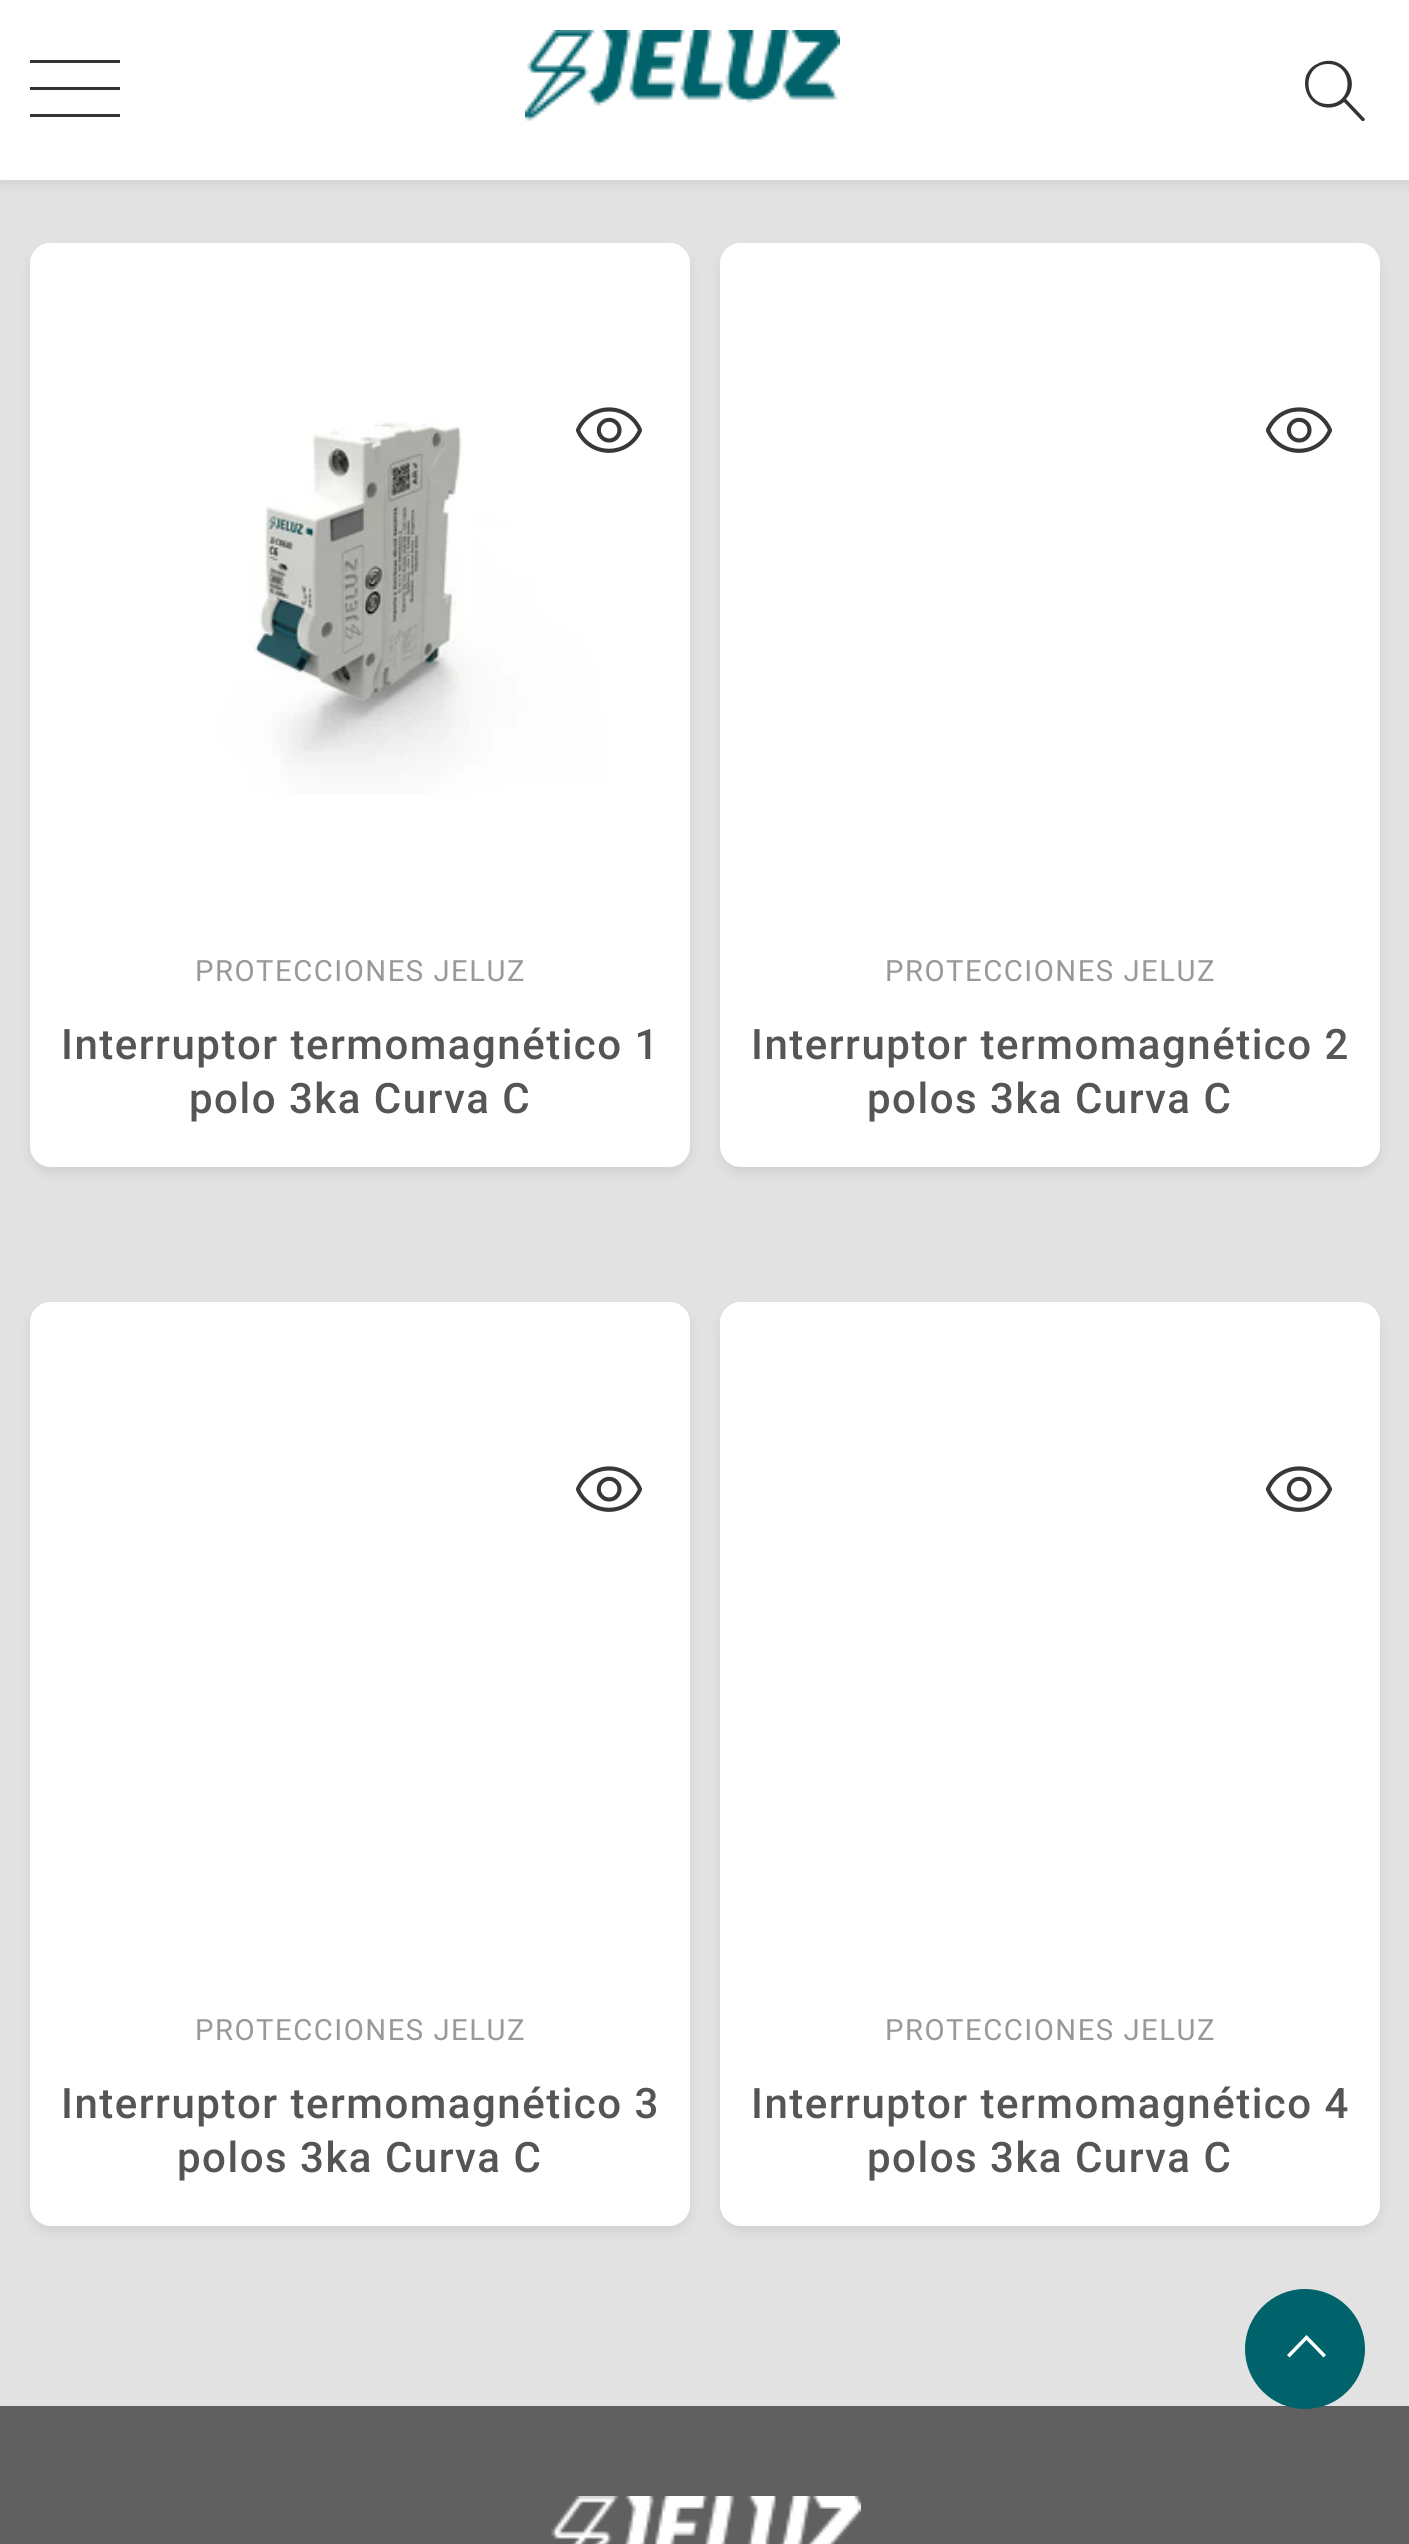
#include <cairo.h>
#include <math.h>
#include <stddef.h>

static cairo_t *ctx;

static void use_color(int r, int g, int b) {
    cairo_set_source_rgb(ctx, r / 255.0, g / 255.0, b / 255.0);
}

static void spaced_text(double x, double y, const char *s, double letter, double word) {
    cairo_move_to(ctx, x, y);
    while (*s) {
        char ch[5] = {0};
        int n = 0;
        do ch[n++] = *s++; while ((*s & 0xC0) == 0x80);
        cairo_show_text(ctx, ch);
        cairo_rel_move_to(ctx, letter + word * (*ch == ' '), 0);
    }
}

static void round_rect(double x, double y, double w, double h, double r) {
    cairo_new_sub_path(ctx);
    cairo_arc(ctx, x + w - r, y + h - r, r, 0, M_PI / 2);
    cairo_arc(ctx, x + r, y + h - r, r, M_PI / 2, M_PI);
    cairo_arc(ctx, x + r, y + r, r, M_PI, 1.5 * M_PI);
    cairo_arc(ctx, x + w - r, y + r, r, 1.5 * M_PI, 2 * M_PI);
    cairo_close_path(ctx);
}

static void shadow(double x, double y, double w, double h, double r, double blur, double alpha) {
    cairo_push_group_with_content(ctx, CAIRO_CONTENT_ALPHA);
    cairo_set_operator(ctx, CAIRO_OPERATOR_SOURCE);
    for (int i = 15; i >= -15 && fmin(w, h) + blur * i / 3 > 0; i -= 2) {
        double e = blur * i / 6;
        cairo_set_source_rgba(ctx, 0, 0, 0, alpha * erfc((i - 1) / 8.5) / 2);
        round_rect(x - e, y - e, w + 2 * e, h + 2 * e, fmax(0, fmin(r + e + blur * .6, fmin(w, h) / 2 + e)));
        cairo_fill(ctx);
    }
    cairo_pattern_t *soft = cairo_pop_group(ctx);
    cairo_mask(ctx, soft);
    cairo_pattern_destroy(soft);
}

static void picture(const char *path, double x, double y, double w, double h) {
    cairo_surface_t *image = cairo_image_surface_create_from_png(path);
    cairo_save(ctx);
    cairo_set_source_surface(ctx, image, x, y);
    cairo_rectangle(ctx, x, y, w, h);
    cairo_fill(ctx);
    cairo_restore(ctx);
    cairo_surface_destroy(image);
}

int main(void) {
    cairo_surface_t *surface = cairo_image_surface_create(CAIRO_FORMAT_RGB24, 1409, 2544);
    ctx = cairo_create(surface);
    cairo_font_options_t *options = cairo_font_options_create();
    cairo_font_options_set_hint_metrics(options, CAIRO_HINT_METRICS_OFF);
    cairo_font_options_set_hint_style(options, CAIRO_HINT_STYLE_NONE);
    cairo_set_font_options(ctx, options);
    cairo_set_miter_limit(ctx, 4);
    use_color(96, 96, 96);
    cairo_paint(ctx);
    use_color(226, 226, 226);
    cairo_rectangle(ctx, 0, 180, 1409, 2226);
    cairo_fill(ctx);
    use_color(190, 190, 190);
    shadow(0, 3, 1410, 180, 0, 7.5, 0.5);
    use_color(255, 255, 255);
    cairo_rectangle(ctx, 0, 0, 1409, 180);
    cairo_fill(ctx);
    use_color(51, 51, 51);
    cairo_rectangle(ctx, 30, 60, 90, 3);
    cairo_fill(ctx);
    cairo_rectangle(ctx, 30, 87, 90, 3);
    cairo_fill(ctx);
    cairo_rectangle(ctx, 30, 114, 90, 3);
    cairo_fill(ctx);
    picture("img1.png", 525, 30, 315, 91);
    cairo_new_path(ctx);
    cairo_move_to(ctx, 1364, 118);
    cairo_line_to(ctx, 1346, 99);
    cairo_curve_to(ctx, 1363, 80, 1340, 51, 1317, 64);
    cairo_curve_to(ctx, 1312, 66, 1308, 71, 1306, 76);
    cairo_curve_to(ctx, 1304, 83, 1305, 91, 1309, 97);
    cairo_curve_to(ctx, 1317, 109, 1333, 111, 1344, 102);
    cairo_line_to(ctx, 1362, 121);
    cairo_curve_to(ctx, 1364, 122, 1366, 119, 1364, 118);
    cairo_close_path(ctx);
    cairo_move_to(ctx, 1328, 104);
    cairo_curve_to(ctx, 1302, 104, 1302, 64, 1328, 64);
    cairo_curve_to(ctx, 1354, 64, 1354, 104, 1328, 104);
    cairo_close_path(ctx);
    cairo_fill(ctx);
    use_color(0, 0, 0);
    shadow(30, 249, 660, 924, 21, 6, 0.08);
    use_color(255, 255, 255);
    round_rect(30, 243, 660, 924, 21);
    cairo_fill(ctx);
    round_rect(30, 243, 660, 660, 21);
    cairo_fill(ctx);
    picture("img2.png", 35, 244, 643, 550);
    picture("img3.png", 575, 407, 68, 46);
    cairo_select_font_face(ctx, "Roboto", CAIRO_FONT_SLANT_NORMAL, CAIRO_FONT_WEIGHT_NORMAL);
    cairo_set_font_size(ctx, 29.25);
    use_color(153, 153, 153);
    spaced_text(195, 981, "PROTECCIONES JELUZ", 1.5, 0);
    cairo_select_font_face(ctx, "Roboto Medium", CAIRO_FONT_SLANT_NORMAL, CAIRO_FONT_WEIGHT_NORMAL);
    cairo_set_font_size(ctx, 42);
    use_color(85, 85, 85);
    spaced_text(61, 1059, "Interruptor termomagnético 1", 1.5, 0);
    spaced_text(189, 1113, "polo 3ka Curva C", 1.5, 0);
    use_color(0, 0, 0);
    shadow(720, 249, 660, 924, 21, 6, 0.08);
    use_color(255, 255, 255);
    round_rect(720, 243, 660, 924, 21);
    cairo_fill(ctx);
    round_rect(720, 243, 660, 660, 21);
    cairo_fill(ctx);
    picture("img3.png", 1265, 407, 68, 46);
    cairo_select_font_face(ctx, "Roboto", CAIRO_FONT_SLANT_NORMAL, CAIRO_FONT_WEIGHT_NORMAL);
    cairo_set_font_size(ctx, 29.25);
    use_color(153, 153, 153);
    spaced_text(885, 981, "PROTECCIONES JELUZ", 1.5, 0);
    cairo_select_font_face(ctx, "Roboto Medium", CAIRO_FONT_SLANT_NORMAL, CAIRO_FONT_WEIGHT_NORMAL);
    cairo_set_font_size(ctx, 42);
    use_color(85, 85, 85);
    spaced_text(751, 1059, "Interruptor termomagnético 2", 1.5, 0);
    spaced_text(867, 1113, "polos 3ka Curva C", 1.5, 0);
    use_color(0, 0, 0);
    shadow(30, 1308, 660, 924, 21, 6, 0.08);
    use_color(255, 255, 255);
    round_rect(30, 1302, 660, 924, 21);
    cairo_fill(ctx);
    round_rect(30, 1302, 660, 660, 21);
    cairo_fill(ctx);
    picture("img3.png", 575, 1466, 68, 46);
    cairo_select_font_face(ctx, "Roboto", CAIRO_FONT_SLANT_NORMAL, CAIRO_FONT_WEIGHT_NORMAL);
    cairo_set_font_size(ctx, 29.25);
    use_color(153, 153, 153);
    spaced_text(195, 2040, "PROTECCIONES JELUZ", 1.5, 0);
    cairo_select_font_face(ctx, "Roboto Medium", CAIRO_FONT_SLANT_NORMAL, CAIRO_FONT_WEIGHT_NORMAL);
    cairo_set_font_size(ctx, 42);
    use_color(85, 85, 85);
    spaced_text(61, 2118, "Interruptor termomagnético 3", 1.5, 0);
    spaced_text(177, 2172, "polos 3ka Curva C", 1.5, 0);
    use_color(0, 0, 0);
    shadow(720, 1308, 660, 924, 21, 6, 0.08);
    use_color(255, 255, 255);
    round_rect(720, 1302, 660, 924, 21);
    cairo_fill(ctx);
    round_rect(720, 1302, 660, 660, 21);
    cairo_fill(ctx);
    picture("img3.png", 1265, 1466, 68, 46);
    cairo_select_font_face(ctx, "Roboto", CAIRO_FONT_SLANT_NORMAL, CAIRO_FONT_WEIGHT_NORMAL);
    cairo_set_font_size(ctx, 29.25);
    use_color(153, 153, 153);
    spaced_text(885, 2040, "PROTECCIONES JELUZ", 1.5, 0);
    cairo_select_font_face(ctx, "Roboto Medium", CAIRO_FONT_SLANT_NORMAL, CAIRO_FONT_WEIGHT_NORMAL);
    cairo_set_font_size(ctx, 42);
    use_color(85, 85, 85);
    spaced_text(751, 2118, "Interruptor termomagnético 4", 1.5, 0);
    spaced_text(867, 2172, "polos 3ka Curva C", 1.5, 0);
    picture("img4.png", 551, 2496, 310, 48);
    use_color(0, 99, 108);
    cairo_arc(ctx, 1305, 2349, 60, 0, 2 * M_PI);
    cairo_fill(ctx);
    use_color(255, 255, 255);
    cairo_new_path(ctx);
    cairo_move_to(ctx, 1309, 2337.5);
    cairo_line_to(ctx, 1306.5, 2335);
    cairo_line_to(ctx, 1287, 2355);
    cairo_line_to(ctx, 1289.5, 2357.5);
    cairo_line_to(ctx, 1306.5, 2340);
    cairo_line_to(ctx, 1323.5, 2357.5);
    cairo_line_to(ctx, 1326, 2355);
    cairo_close_path(ctx);
    cairo_fill(ctx);
    cairo_surface_write_to_png(surface, "result.png");
    cairo_font_options_destroy(options);
    cairo_destroy(ctx);
    cairo_surface_destroy(surface);
    return 0;
}
